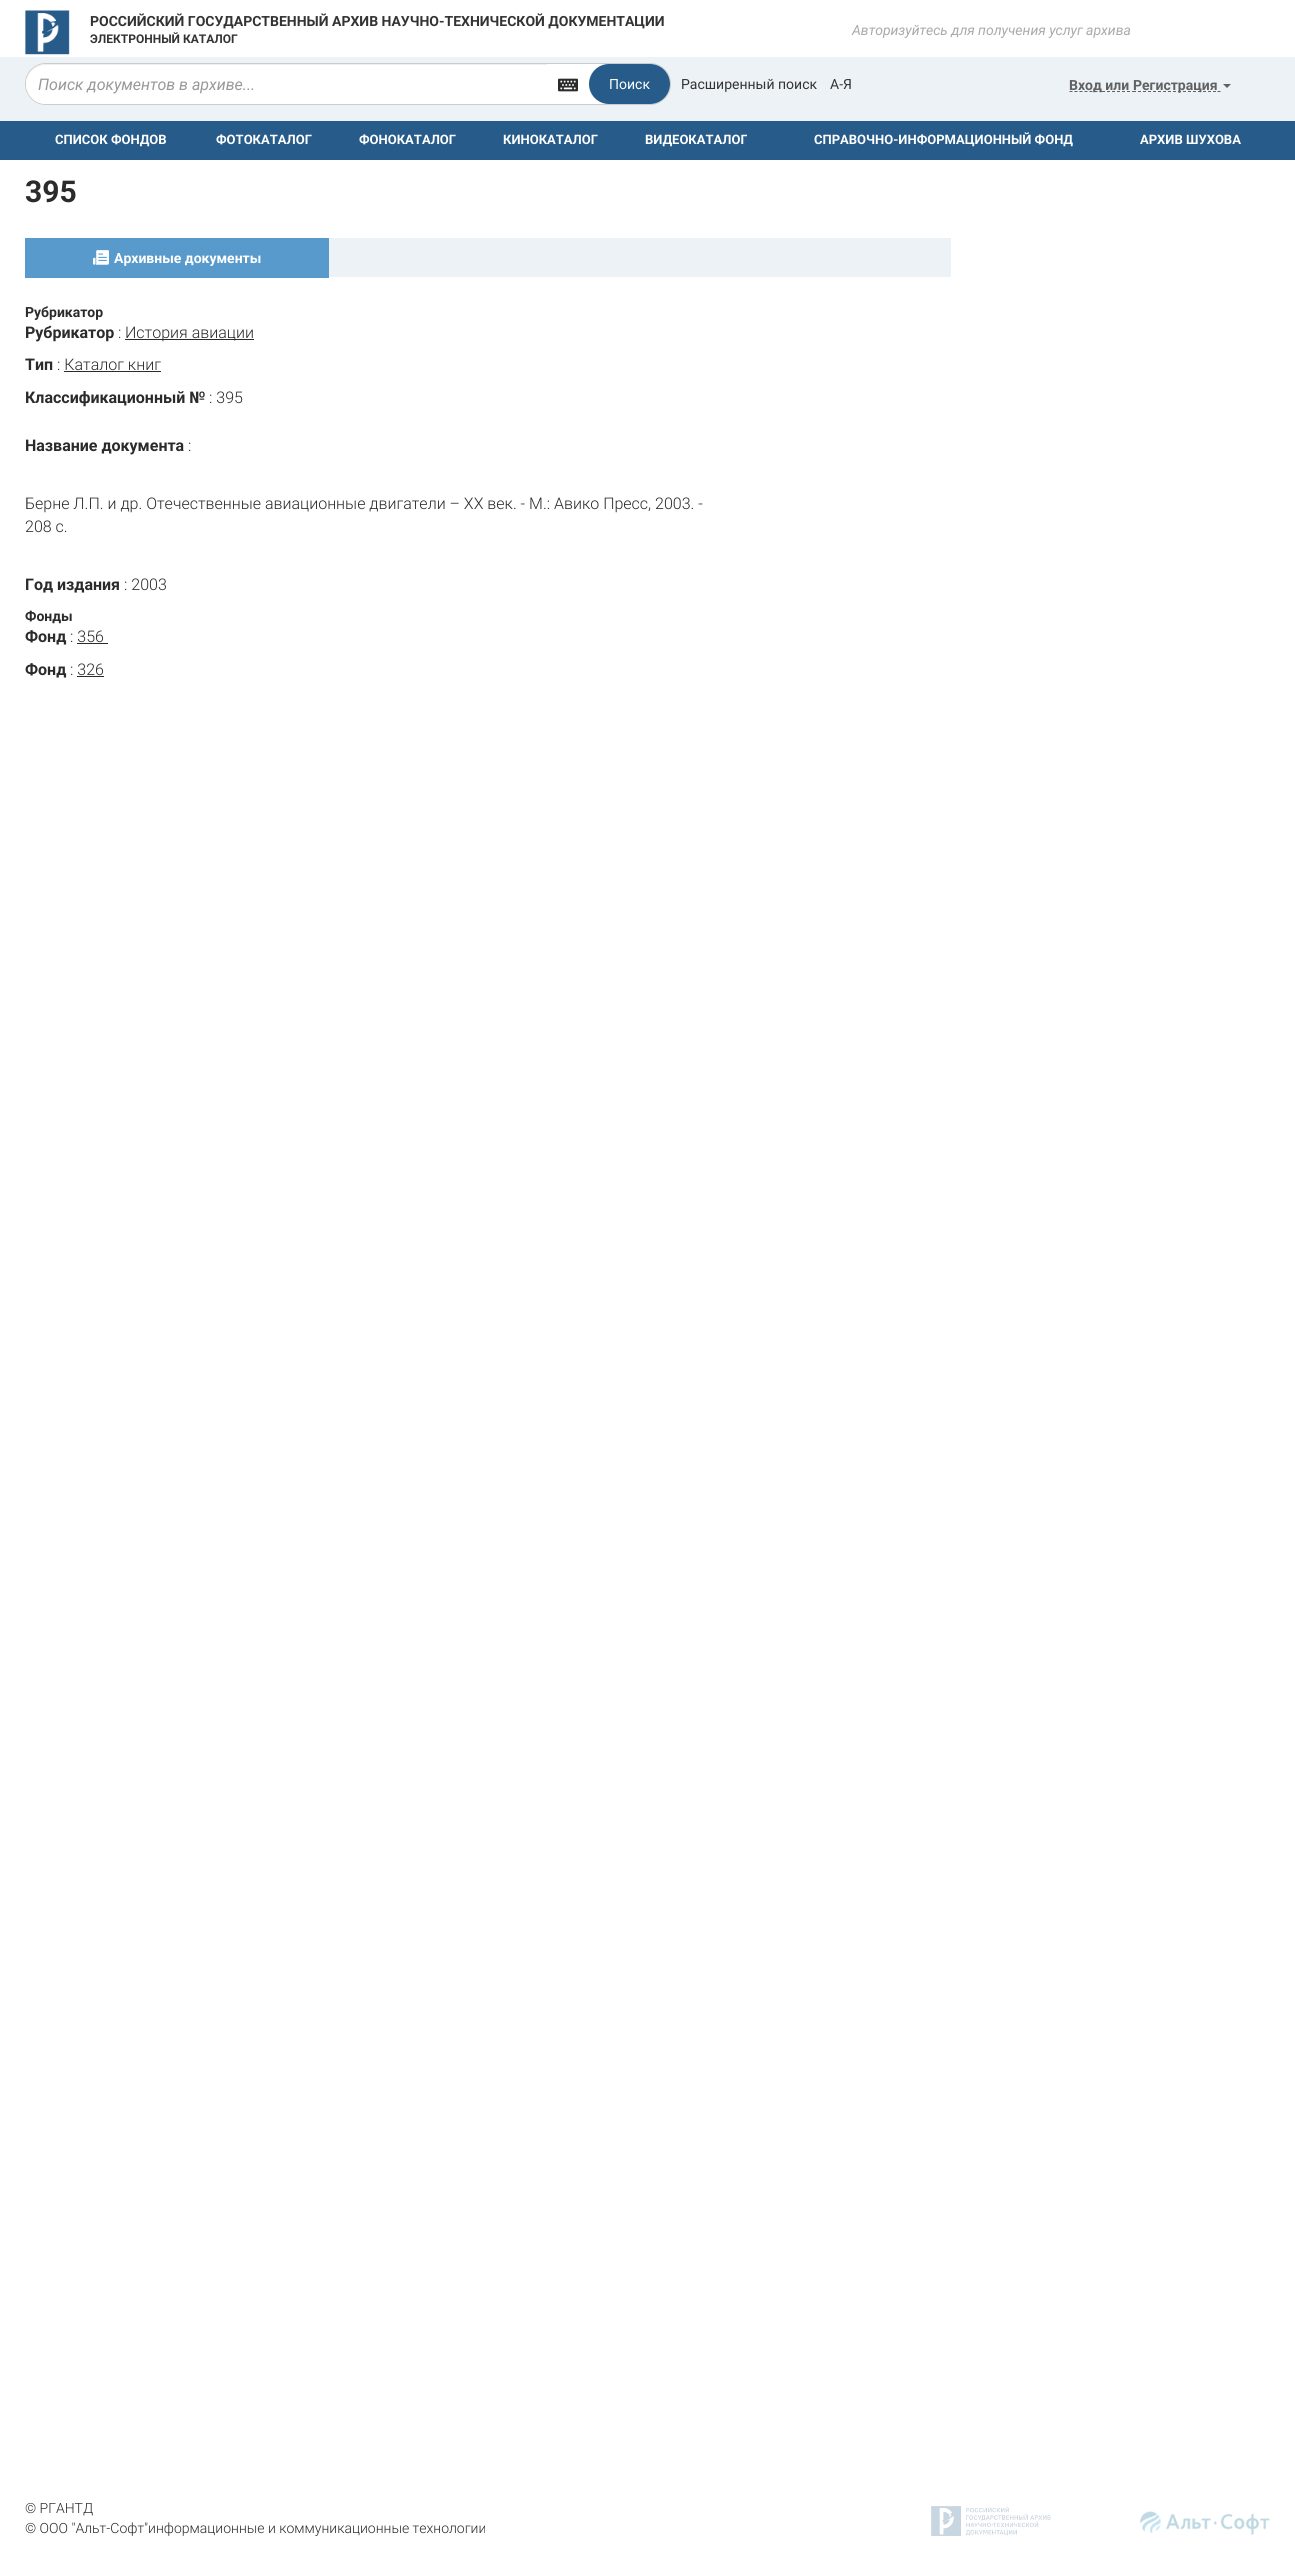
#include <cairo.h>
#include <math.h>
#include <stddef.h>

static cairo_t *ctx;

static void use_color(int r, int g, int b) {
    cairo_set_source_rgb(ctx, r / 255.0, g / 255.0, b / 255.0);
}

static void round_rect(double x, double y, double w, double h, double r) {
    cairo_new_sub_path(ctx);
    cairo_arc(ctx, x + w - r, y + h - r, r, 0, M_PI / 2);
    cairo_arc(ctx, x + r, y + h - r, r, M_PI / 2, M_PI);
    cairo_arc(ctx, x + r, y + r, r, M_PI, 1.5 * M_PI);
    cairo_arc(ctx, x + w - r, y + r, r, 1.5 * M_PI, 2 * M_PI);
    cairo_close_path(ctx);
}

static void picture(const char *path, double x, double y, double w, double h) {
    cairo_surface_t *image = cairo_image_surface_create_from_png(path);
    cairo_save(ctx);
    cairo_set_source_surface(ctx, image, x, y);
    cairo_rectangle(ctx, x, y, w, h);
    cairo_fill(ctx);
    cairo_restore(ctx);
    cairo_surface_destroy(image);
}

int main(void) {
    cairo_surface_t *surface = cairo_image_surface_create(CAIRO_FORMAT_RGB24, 1295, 2561);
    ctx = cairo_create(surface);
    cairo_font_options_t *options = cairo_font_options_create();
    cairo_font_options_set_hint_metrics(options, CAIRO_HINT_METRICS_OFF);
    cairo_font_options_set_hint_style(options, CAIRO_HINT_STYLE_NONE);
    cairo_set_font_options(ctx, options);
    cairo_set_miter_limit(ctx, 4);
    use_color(255, 255, 255);
    cairo_paint(ctx);
    use_color(237, 242, 246);
    cairo_rectangle(ctx, 0, 57, 1295, 64);
    cairo_fill(ctx);
    picture("img1.png", 25, 10, 45, 45);
    cairo_select_font_face(ctx, "Roboto", CAIRO_FONT_SLANT_NORMAL, CAIRO_FONT_WEIGHT_BOLD);
    cairo_set_font_size(ctx, 14);
    use_color(51, 51, 51);
    cairo_move_to(ctx, 90, 26);
    cairo_show_text(ctx, "РОССИЙСКИЙ ГОСУДАРСТВЕННЫЙ АРХИВ НАУЧНО-ТЕХНИЧЕСКОЙ ДОКУМЕНТАЦИИ");
    cairo_set_font_size(ctx, 12);
    cairo_move_to(ctx, 90, 43);
    cairo_show_text(ctx, "ЭЛЕКТРОННЫЙ КАТАЛОГ");
    use_color(255, 255, 255);
    round_rect(25.5, 63.5, 645, 41, 20.5);
    cairo_fill_preserve(ctx);
    use_color(204, 204, 204);
    cairo_set_line_width(ctx, 1);
    cairo_stroke(ctx);
    use_color(255, 255, 255);
    cairo_new_path(ctx);
    cairo_move_to(ctx, 46, 64);
    cairo_line_to(ctx, 547, 64);
    cairo_line_to(ctx, 547, 104);
    cairo_line_to(ctx, 46, 104);
    cairo_curve_to(ctx, 35, 104, 26, 95, 26, 84);
    cairo_curve_to(ctx, 26, 73, 35, 64, 46, 64);
    cairo_close_path(ctx);
    cairo_fill(ctx);
    cairo_set_source_rgba(ctx, 0, 0, 0, 0.07);
    cairo_new_path(ctx);
    cairo_move_to(ctx, 46, 65);
    cairo_line_to(ctx, 547, 65);
    cairo_line_to(ctx, 547, 64);
    cairo_line_to(ctx, 46, 64);
    cairo_curve_to(ctx, 35, 64, 26, 73, 26, 85);
    cairo_curve_to(ctx, 26, 74, 35, 65, 46, 65);
    cairo_close_path(ctx);
    cairo_fill(ctx);
    cairo_select_font_face(ctx, "Roboto", CAIRO_FONT_SLANT_ITALIC, CAIRO_FONT_WEIGHT_NORMAL);
    cairo_set_font_size(ctx, 16);
    use_color(153, 153, 153);
    cairo_move_to(ctx, 38, 90);
    cairo_show_text(ctx, "Поиск документов в архиве...");
    picture("img2.png", 558, 78, 20, 14);
    use_color(38, 91, 138);
    round_rect(589, 64, 81, 40, 20);
    cairo_fill(ctx);
    cairo_select_font_face(ctx, "Roboto", CAIRO_FONT_SLANT_NORMAL, CAIRO_FONT_WEIGHT_NORMAL);
    cairo_set_font_size(ctx, 14);
    use_color(255, 255, 255);
    cairo_move_to(ctx, 609, 89);
    cairo_show_text(ctx, "Поиск");
    use_color(51, 51, 51);
    cairo_move_to(ctx, 681, 89);
    cairo_show_text(ctx, "Расширенный поиск");
    cairo_move_to(ctx, 830, 89);
    cairo_show_text(ctx, "А-Я");
    cairo_select_font_face(ctx, "Roboto", CAIRO_FONT_SLANT_ITALIC, CAIRO_FONT_WEIGHT_NORMAL);
    use_color(170, 170, 170);
    cairo_move_to(ctx, 852, 35);
    cairo_show_text(ctx, "Авторизуйтесь для получения услуг архива");
    cairo_new_path(ctx);
    cairo_move_to(ctx, 1069.5, 91.5);
    cairo_line_to(ctx, 1102, 91.5);
    use_color(97, 97, 97);
    cairo_set_dash(ctx, (double[]){3, 2}, 2, 0);
    cairo_stroke(ctx);
    cairo_select_font_face(ctx, "Roboto", CAIRO_FONT_SLANT_NORMAL, CAIRO_FONT_WEIGHT_BOLD);
    cairo_move_to(ctx, 1069, 90);
    cairo_show_text(ctx, "Вход или");
    cairo_new_path(ctx);
    cairo_move_to(ctx, 1133, 91.5);
    cairo_line_to(ctx, 1217.5, 91.5);
    cairo_stroke(ctx);
    cairo_move_to(ctx, 1133, 90);
    cairo_show_text(ctx, "Регистрация");
    cairo_new_path(ctx);
    cairo_move_to(ctx, 1223, 84);
    cairo_line_to(ctx, 1231, 84);
    cairo_line_to(ctx, 1227, 88);
    cairo_close_path(ctx);
    cairo_fill(ctx);
    cairo_new_path(ctx);
    cairo_move_to(ctx, 1102, 91.5);
    cairo_line_to(ctx, 1133, 91.5);
    cairo_stroke(ctx);
    cairo_new_path(ctx);
    cairo_move_to(ctx, 1217.5, 91.5);
    cairo_line_to(ctx, 1220.5, 91.5);
    cairo_set_dash(ctx, NULL, 0, 0);
    cairo_stroke(ctx);
    use_color(38, 91, 138);
    cairo_rectangle(ctx, 0, 121, 1295, 39);
    cairo_fill(ctx);
    cairo_set_font_size(ctx, 13);
    use_color(255, 255, 255);
    cairo_move_to(ctx, 55, 144);
    cairo_show_text(ctx, "СПИСОК ФОНДОВ");
    cairo_move_to(ctx, 216, 144);
    cairo_show_text(ctx, "ФОТОКАТАЛОГ");
    cairo_move_to(ctx, 359, 144);
    cairo_show_text(ctx, "ФОНОКАТАЛОГ");
    cairo_move_to(ctx, 503, 144);
    cairo_show_text(ctx, "КИНОКАТАЛОГ");
    cairo_move_to(ctx, 645, 144);
    cairo_show_text(ctx, "ВИДЕОКАТАЛОГ");
    cairo_move_to(ctx, 814, 144);
    cairo_show_text(ctx, "СПРАВОЧНО-ИНФОРМАЦИОННЫЙ ФОНД");
    cairo_move_to(ctx, 1140, 144);
    cairo_show_text(ctx, "АРХИВ ШУХОВА");
    cairo_set_font_size(ctx, 30);
    use_color(43, 43, 43);
    cairo_move_to(ctx, 25, 202);
    cairo_show_text(ctx, "395");
    use_color(237, 242, 246);
    cairo_rectangle(ctx, 329, 238, 622, 39);
    cairo_fill(ctx);
    use_color(88, 154, 204);
    cairo_rectangle(ctx, 25, 238, 304, 40);
    cairo_fill(ctx);
    picture("img3.png", 93, 250, 16, 15);
    cairo_set_font_size(ctx, 14);
    use_color(255, 255, 255);
    cairo_move_to(ctx, 114, 263);
    cairo_show_text(ctx, "Архивные документы");
    use_color(43, 43, 43);
    cairo_move_to(ctx, 25, 317);
    cairo_show_text(ctx, "Рубрикатор");
    cairo_set_font_size(ctx, 16);
    cairo_move_to(ctx, 25, 338);
    cairo_show_text(ctx, "Рубрикатор");
    cairo_select_font_face(ctx, "Roboto Light", CAIRO_FONT_SLANT_NORMAL, CAIRO_FONT_WEIGHT_NORMAL);
    cairo_move_to(ctx, 118, 338);
    cairo_show_text(ctx, ":");
    cairo_rectangle(ctx, 125, 339, 129, 1);
    cairo_fill(ctx);
    cairo_move_to(ctx, 125, 338);
    cairo_show_text(ctx, "История авиации");
    cairo_select_font_face(ctx, "Roboto", CAIRO_FONT_SLANT_NORMAL, CAIRO_FONT_WEIGHT_BOLD);
    cairo_move_to(ctx, 25, 370);
    cairo_show_text(ctx, "Тип");
    cairo_select_font_face(ctx, "Roboto Light", CAIRO_FONT_SLANT_NORMAL, CAIRO_FONT_WEIGHT_NORMAL);
    cairo_move_to(ctx, 57, 370);
    cairo_show_text(ctx, ": Каталог книг");
    cairo_rectangle(ctx, 64, 371, 97, 1);
    cairo_fill(ctx);
    cairo_select_font_face(ctx, "Roboto", CAIRO_FONT_SLANT_NORMAL, CAIRO_FONT_WEIGHT_BOLD);
    cairo_move_to(ctx, 25, 403);
    cairo_show_text(ctx, "Классификационный №");
    cairo_select_font_face(ctx, "Roboto Light", CAIRO_FONT_SLANT_NORMAL, CAIRO_FONT_WEIGHT_NORMAL);
    cairo_move_to(ctx, 209, 403);
    cairo_show_text(ctx, ": 395");
    cairo_select_font_face(ctx, "Roboto", CAIRO_FONT_SLANT_NORMAL, CAIRO_FONT_WEIGHT_BOLD);
    cairo_move_to(ctx, 25, 451);
    cairo_show_text(ctx, "Название документа");
    cairo_select_font_face(ctx, "Roboto Light", CAIRO_FONT_SLANT_NORMAL, CAIRO_FONT_WEIGHT_NORMAL);
    cairo_move_to(ctx, 188, 451);
    cairo_show_text(ctx, ":");
    cairo_move_to(ctx, 25, 509);
    cairo_show_text(ctx, "Берне Л.П. и др. Отечественные авиационные двигатели – XX век. - М.: Авико Пресс, 2003. -");
    cairo_move_to(ctx, 25, 532);
    cairo_show_text(ctx, "208 с.");
    cairo_select_font_face(ctx, "Roboto", CAIRO_FONT_SLANT_NORMAL, CAIRO_FONT_WEIGHT_BOLD);
    cairo_move_to(ctx, 25, 590);
    cairo_show_text(ctx, "Год издания");
    cairo_select_font_face(ctx, "Roboto Light", CAIRO_FONT_SLANT_NORMAL, CAIRO_FONT_WEIGHT_NORMAL);
    cairo_move_to(ctx, 124, 590);
    cairo_show_text(ctx, ": 2003");
    cairo_select_font_face(ctx, "Roboto", CAIRO_FONT_SLANT_NORMAL, CAIRO_FONT_WEIGHT_BOLD);
    cairo_set_font_size(ctx, 14);
    cairo_move_to(ctx, 25, 621);
    cairo_show_text(ctx, "Фонды");
    cairo_set_font_size(ctx, 16);
    cairo_move_to(ctx, 25, 642);
    cairo_show_text(ctx, "Фонд");
    cairo_select_font_face(ctx, "Roboto Light", CAIRO_FONT_SLANT_NORMAL, CAIRO_FONT_WEIGHT_NORMAL);
    cairo_move_to(ctx, 70, 642);
    cairo_show_text(ctx, ": 356");
    cairo_rectangle(ctx, 77, 643, 31, 1);
    cairo_fill(ctx);
    cairo_select_font_face(ctx, "Roboto", CAIRO_FONT_SLANT_NORMAL, CAIRO_FONT_WEIGHT_BOLD);
    cairo_move_to(ctx, 25, 675);
    cairo_show_text(ctx, "Фонд");
    cairo_select_font_face(ctx, "Roboto Light", CAIRO_FONT_SLANT_NORMAL, CAIRO_FONT_WEIGHT_NORMAL);
    cairo_move_to(ctx, 70, 675);
    cairo_show_text(ctx, ": 326");
    cairo_rectangle(ctx, 77, 676, 27, 1);
    cairo_fill(ctx);
    cairo_set_font_size(ctx, 14);
    cairo_move_to(ctx, 25, 2513);
    cairo_show_text(ctx, "© РГАНТД");
    cairo_move_to(ctx, 25, 2533);
    cairo_show_text(ctx, "© ООО \"Альт-Софт\"информационные и коммуникационные технологии");
    picture("img4.png", 931, 2506, 120, 30);
    picture("img5.png", 1140, 2511, 130, 24);
    cairo_surface_write_to_png(surface, "result.png");
    cairo_font_options_destroy(options);
    cairo_destroy(ctx);
    cairo_surface_destroy(surface);
    return 0;
}
